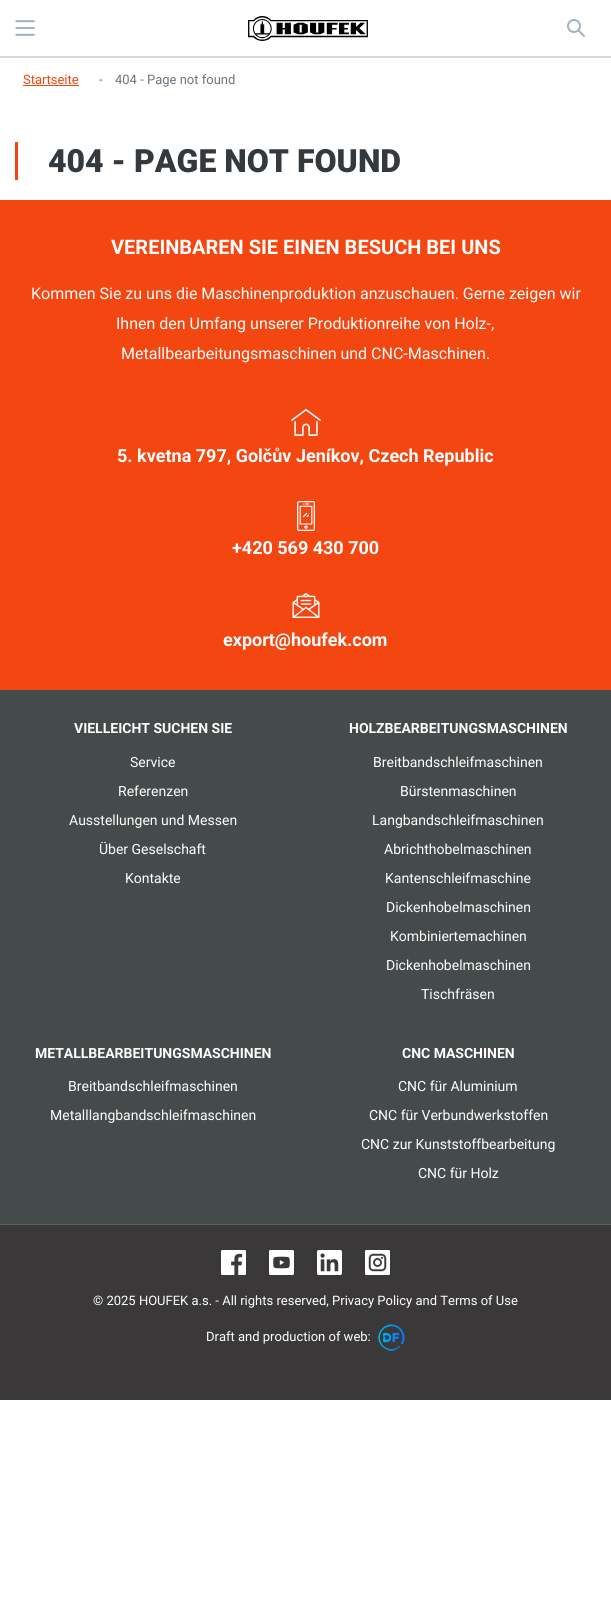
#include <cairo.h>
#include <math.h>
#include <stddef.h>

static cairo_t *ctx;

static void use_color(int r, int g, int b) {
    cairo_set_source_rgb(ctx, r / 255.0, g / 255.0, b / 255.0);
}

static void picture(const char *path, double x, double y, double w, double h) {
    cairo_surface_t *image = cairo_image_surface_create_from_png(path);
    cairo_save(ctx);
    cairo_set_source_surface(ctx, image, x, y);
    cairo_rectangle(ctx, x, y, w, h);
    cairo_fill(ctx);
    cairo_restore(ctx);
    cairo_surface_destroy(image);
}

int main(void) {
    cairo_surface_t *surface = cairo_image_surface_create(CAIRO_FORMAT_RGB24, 611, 1619);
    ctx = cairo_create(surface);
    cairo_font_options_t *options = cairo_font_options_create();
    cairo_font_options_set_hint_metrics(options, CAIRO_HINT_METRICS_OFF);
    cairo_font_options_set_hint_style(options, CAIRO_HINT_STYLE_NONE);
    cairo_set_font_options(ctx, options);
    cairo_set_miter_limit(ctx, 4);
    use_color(255, 255, 255);
    cairo_paint(ctx);
    picture("img1.png", 15, 20, 20, 16);
    picture("img2.png", 248, 16, 120, 25);
    picture("img3.png", 567, 19, 18, 18);
    use_color(207, 217, 222);
    cairo_rectangle(ctx, 0, 56, 611, 2);
    cairo_fill(ctx);
    cairo_select_font_face(ctx, "Roboto", CAIRO_FONT_SLANT_NORMAL, CAIRO_FONT_WEIGHT_NORMAL);
    cairo_set_font_size(ctx, 13);
    use_color(244, 70, 17);
    cairo_move_to(ctx, 23, 84);
    cairo_show_text(ctx, "Startseite");
    cairo_rectangle(ctx, 23, 85, 56, 1);
    cairo_fill(ctx);
    use_color(108, 117, 125);
    cairo_move_to(ctx, 99, 84);
    cairo_show_text(ctx, "-");
    cairo_move_to(ctx, 115, 84);
    cairo_show_text(ctx, "404 - Page not found");
    use_color(244, 70, 17);
    cairo_rectangle(ctx, 15, 142, 3, 38);
    cairo_fill(ctx);
    cairo_select_font_face(ctx, "Roboto Black", CAIRO_FONT_SLANT_NORMAL, CAIRO_FONT_WEIGHT_NORMAL);
    cairo_set_font_size(ctx, 32);
    use_color(51, 57, 60);
    cairo_move_to(ctx, 48, 172);
    cairo_show_text(ctx, "404 - PAGE NOT FOUND");
    use_color(69, 74, 75);
    cairo_rectangle(ctx, 0, 690, 611, 534);
    cairo_fill(ctx);
    use_color(244, 70, 17);
    cairo_rectangle(ctx, 0, 200, 611, 490);
    cairo_fill(ctx);
    cairo_select_font_face(ctx, "Roboto", CAIRO_FONT_SLANT_NORMAL, CAIRO_FONT_WEIGHT_BOLD);
    cairo_set_font_size(ctx, 20);
    use_color(255, 255, 255);
    cairo_move_to(ctx, 111, 254);
    cairo_show_text(ctx, "VEREINBAREN SIE EINEN BESUCH BEI UNS");
    cairo_select_font_face(ctx, "Roboto", CAIRO_FONT_SLANT_NORMAL, CAIRO_FONT_WEIGHT_NORMAL);
    cairo_set_font_size(ctx, 16);
    cairo_move_to(ctx, 31, 299);
    cairo_show_text(ctx, "Kommen Sie zu uns die Maschinenproduktion anzuschauen. Gerne zeigen wir");
    cairo_move_to(ctx, 116, 329);
    cairo_show_text(ctx, "Ihnen den Umfang unserer Produktionreihe von Holz-,");
    cairo_move_to(ctx, 121, 359);
    cairo_show_text(ctx, "Metallbearbeitungsmaschinen und CNC-Maschinen.");
    picture("img4.png", 291, 409, 30, 27);
    cairo_select_font_face(ctx, "Roboto", CAIRO_FONT_SLANT_NORMAL, CAIRO_FONT_WEIGHT_BOLD);
    cairo_set_font_size(ctx, 18);
    cairo_move_to(ctx, 117, 462);
    cairo_show_text(ctx, "5. kvetna 797, Golčův Jeníkov, Czech Republic");
    picture("img5.png", 297, 501, 18, 30);
    cairo_move_to(ctx, 232, 554);
    cairo_show_text(ctx, "+420 569 430 700");
    picture("img6.png", 292, 593, 28, 25);
    cairo_move_to(ctx, 223, 646);
    cairo_show_text(ctx, "export@houfek.com");
    cairo_set_font_size(ctx, 14);
    cairo_move_to(ctx, 74, 733);
    cairo_show_text(ctx, "VIELLEICHT SUCHEN SIE");
    cairo_select_font_face(ctx, "Roboto", CAIRO_FONT_SLANT_NORMAL, CAIRO_FONT_WEIGHT_NORMAL);
    cairo_move_to(ctx, 130, 767);
    cairo_show_text(ctx, "Service");
    cairo_move_to(ctx, 118, 796);
    cairo_show_text(ctx, "Referenzen");
    cairo_move_to(ctx, 69, 825);
    cairo_show_text(ctx, "Ausstellungen und Messen");
    cairo_move_to(ctx, 99, 854);
    cairo_show_text(ctx, "Über Geselschaft");
    cairo_move_to(ctx, 125, 883);
    cairo_show_text(ctx, "Kontakte");
    cairo_select_font_face(ctx, "Roboto", CAIRO_FONT_SLANT_NORMAL, CAIRO_FONT_WEIGHT_BOLD);
    cairo_move_to(ctx, 349, 733);
    cairo_show_text(ctx, "HOLZBEARBEITUNGSMASCHINEN");
    cairo_select_font_face(ctx, "Roboto", CAIRO_FONT_SLANT_NORMAL, CAIRO_FONT_WEIGHT_NORMAL);
    cairo_move_to(ctx, 373, 767);
    cairo_show_text(ctx, "Breitbandschleifmaschinen");
    cairo_move_to(ctx, 400, 796);
    cairo_show_text(ctx, "Bürstenmaschinen");
    cairo_move_to(ctx, 372, 825);
    cairo_show_text(ctx, "Langbandschleifmaschinen");
    cairo_move_to(ctx, 384, 854);
    cairo_show_text(ctx, "Abrichthobelmaschinen");
    cairo_move_to(ctx, 385, 883);
    cairo_show_text(ctx, "Kantenschleifmaschine");
    cairo_move_to(ctx, 386, 912);
    cairo_show_text(ctx, "Dickenhobelmaschinen");
    cairo_move_to(ctx, 390, 941);
    cairo_show_text(ctx, "Kombiniertemachinen");
    cairo_move_to(ctx, 386, 970);
    cairo_show_text(ctx, "Dickenhobelmaschinen");
    cairo_move_to(ctx, 421, 999);
    cairo_show_text(ctx, "Tischfräsen");
    cairo_select_font_face(ctx, "Roboto", CAIRO_FONT_SLANT_NORMAL, CAIRO_FONT_WEIGHT_BOLD);
    cairo_move_to(ctx, 35, 1058);
    cairo_show_text(ctx, "METALLBEARBEITUNGSMASCHINEN");
    cairo_select_font_face(ctx, "Roboto", CAIRO_FONT_SLANT_NORMAL, CAIRO_FONT_WEIGHT_NORMAL);
    cairo_move_to(ctx, 68, 1091);
    cairo_show_text(ctx, "Breitbandschleifmaschinen");
    cairo_move_to(ctx, 50, 1120);
    cairo_show_text(ctx, "Metalllangbandschleifmaschinen");
    cairo_select_font_face(ctx, "Roboto", CAIRO_FONT_SLANT_NORMAL, CAIRO_FONT_WEIGHT_BOLD);
    cairo_move_to(ctx, 402, 1058);
    cairo_show_text(ctx, "CNC MASCHINEN");
    cairo_select_font_face(ctx, "Roboto", CAIRO_FONT_SLANT_NORMAL, CAIRO_FONT_WEIGHT_NORMAL);
    cairo_move_to(ctx, 398, 1091);
    cairo_show_text(ctx, "CNC für Aluminium");
    cairo_move_to(ctx, 369, 1120);
    cairo_show_text(ctx, "CNC für Verbundwerkstoffen");
    cairo_move_to(ctx, 361, 1149);
    cairo_show_text(ctx, "CNC zur Kunststoffbearbeitung");
    cairo_move_to(ctx, 418, 1178);
    cairo_show_text(ctx, "CNC für Holz");
    use_color(58, 56, 56);
    cairo_rectangle(ctx, 0, 1225, 611, 175);
    cairo_fill(ctx);
    use_color(92, 94, 95);
    cairo_rectangle(ctx, 0, 1224, 611, 1);
    cairo_fill(ctx);
    picture("img7.png", 221, 1250, 25, 25);
    picture("img8.png", 269, 1250, 25, 25);
    picture("img9.png", 317, 1250, 25, 25);
    picture("img10.png", 365, 1250, 25, 25);
    cairo_set_font_size(ctx, 13);
    use_color(255, 255, 255);
    cairo_move_to(ctx, 93, 1305);
    cairo_show_text(ctx, "© 2025 HOUFEK a.s. - All rights reserved, Privacy Policy and Terms of Use");
    cairo_move_to(ctx, 206, 1341);
    cairo_show_text(ctx, "Draft and production of web:");
    picture("img11.png", 378, 1324, 27, 27);
    cairo_surface_write_to_png(surface, "result.png");
    cairo_font_options_destroy(options);
    cairo_destroy(ctx);
    cairo_surface_destroy(surface);
    return 0;
}
